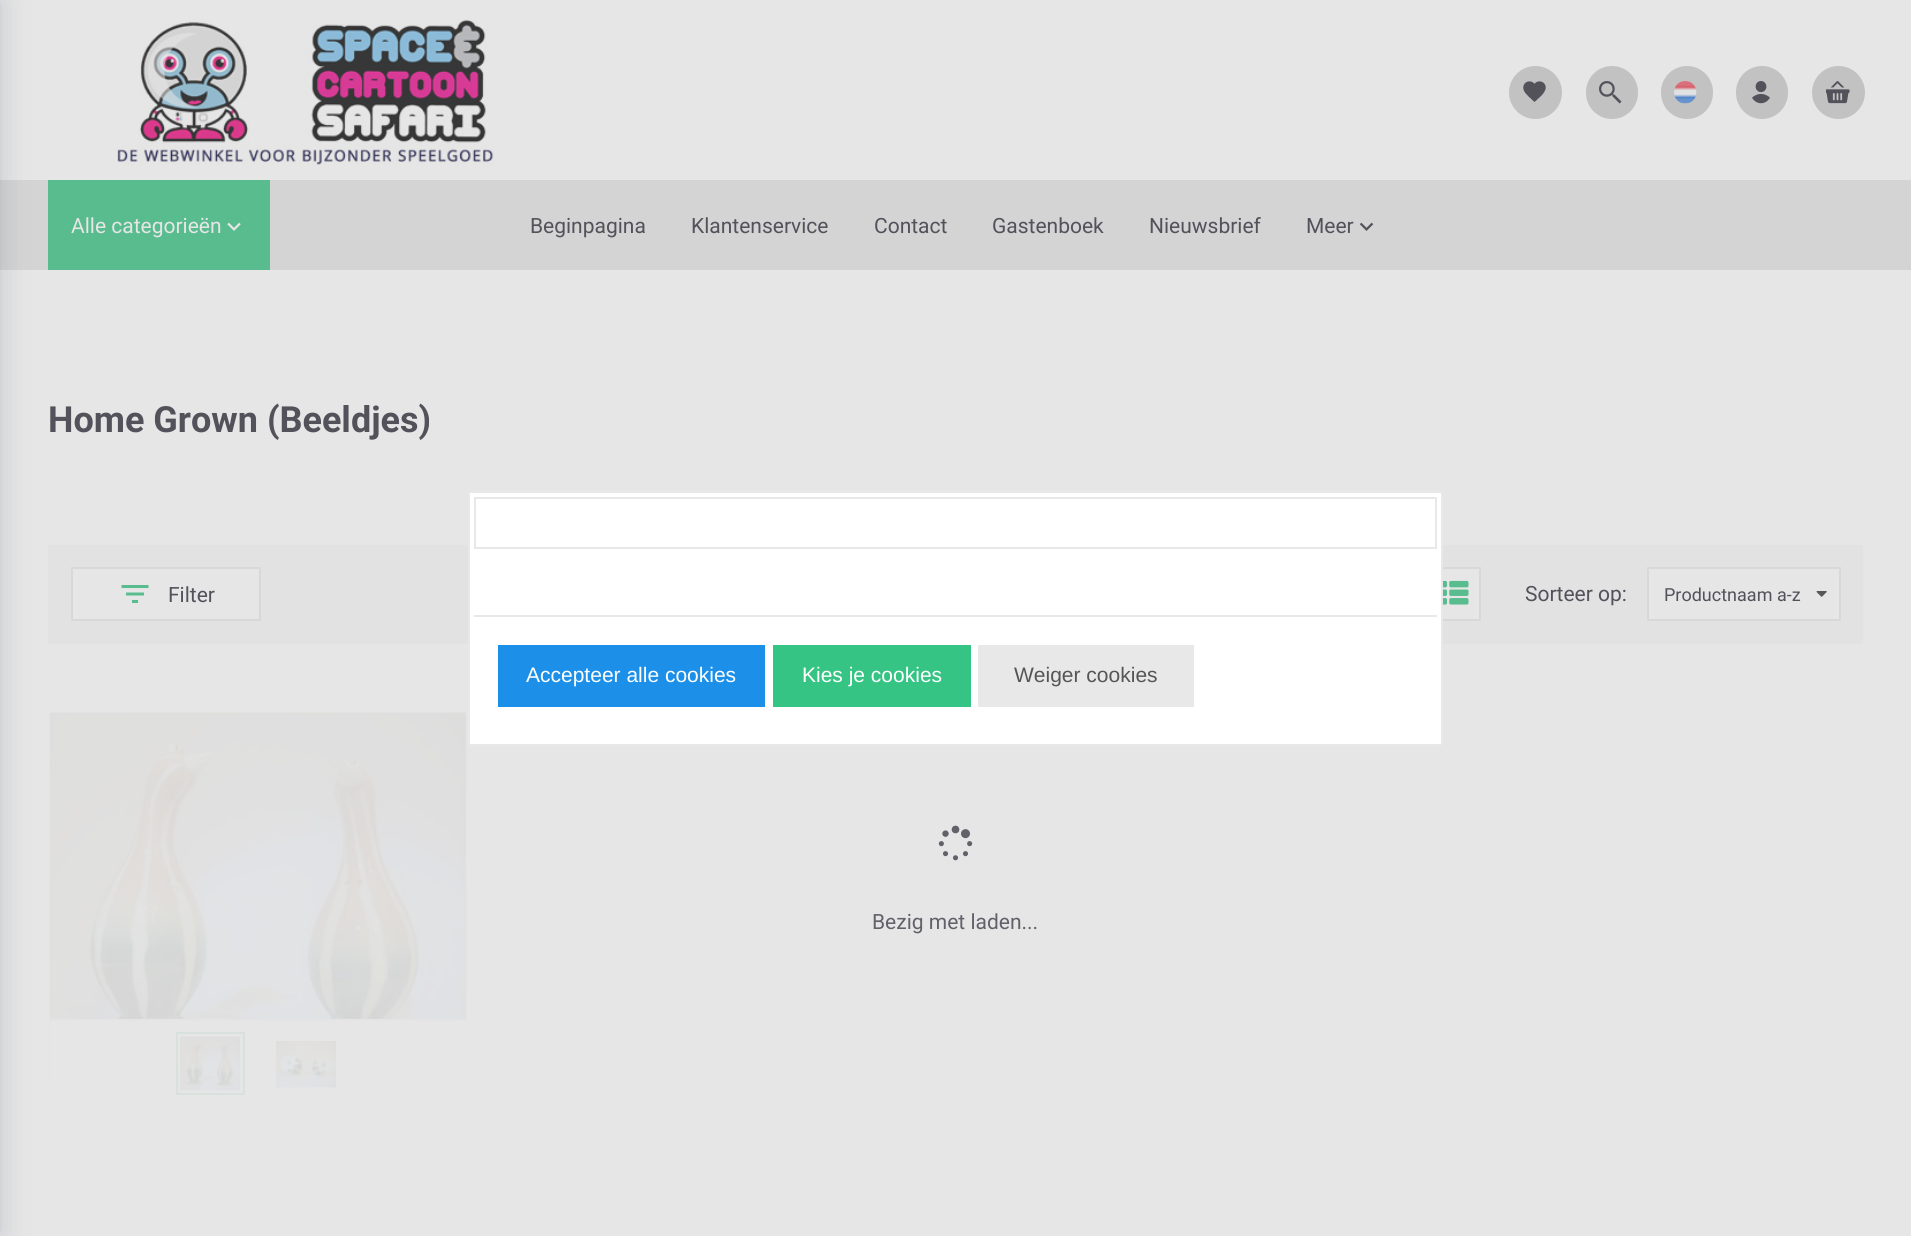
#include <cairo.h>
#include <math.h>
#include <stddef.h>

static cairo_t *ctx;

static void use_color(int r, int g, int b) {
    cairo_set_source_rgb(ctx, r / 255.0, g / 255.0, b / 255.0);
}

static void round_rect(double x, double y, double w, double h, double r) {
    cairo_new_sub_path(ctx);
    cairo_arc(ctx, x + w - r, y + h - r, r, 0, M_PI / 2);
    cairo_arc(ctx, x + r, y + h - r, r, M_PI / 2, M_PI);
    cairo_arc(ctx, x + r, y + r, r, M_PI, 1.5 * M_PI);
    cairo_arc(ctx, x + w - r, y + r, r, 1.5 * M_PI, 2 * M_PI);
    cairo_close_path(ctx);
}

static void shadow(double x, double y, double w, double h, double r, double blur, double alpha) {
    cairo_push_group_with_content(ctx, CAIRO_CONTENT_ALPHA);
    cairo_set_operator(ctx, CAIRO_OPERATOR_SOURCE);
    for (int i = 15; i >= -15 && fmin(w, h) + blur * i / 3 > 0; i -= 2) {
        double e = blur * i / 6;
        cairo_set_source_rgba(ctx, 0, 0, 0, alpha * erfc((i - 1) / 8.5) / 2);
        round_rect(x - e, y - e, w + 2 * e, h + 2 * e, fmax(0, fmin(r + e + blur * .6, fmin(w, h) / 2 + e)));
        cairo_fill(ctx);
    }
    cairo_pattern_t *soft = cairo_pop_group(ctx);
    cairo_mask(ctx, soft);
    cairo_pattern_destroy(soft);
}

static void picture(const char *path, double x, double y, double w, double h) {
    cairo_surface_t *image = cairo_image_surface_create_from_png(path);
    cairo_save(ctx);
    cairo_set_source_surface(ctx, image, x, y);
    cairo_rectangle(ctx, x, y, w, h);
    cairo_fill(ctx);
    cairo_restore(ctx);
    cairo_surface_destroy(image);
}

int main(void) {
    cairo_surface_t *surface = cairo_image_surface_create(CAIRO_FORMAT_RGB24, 1911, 1236);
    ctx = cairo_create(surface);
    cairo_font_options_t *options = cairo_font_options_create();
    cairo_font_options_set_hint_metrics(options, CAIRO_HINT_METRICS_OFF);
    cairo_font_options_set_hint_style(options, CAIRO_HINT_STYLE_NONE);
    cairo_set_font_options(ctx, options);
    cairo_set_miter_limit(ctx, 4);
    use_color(230, 230, 230);
    cairo_paint(ctx);
    picture("img1.png", 117, 19, 377, 146);
    use_color(194, 194, 194);
    cairo_arc(ctx, 1535.5, 92.5, 26.5, 0, 2 * M_PI);
    cairo_fill(ctx);
    picture("img2.png", 1523, 81, 23, 21);
    round_rect(1586, 66, 52, 53, 26);
    cairo_fill(ctx);
    picture("img3.png", 1599, 81, 23, 23);
    round_rect(1661, 66, 52, 53, 26);
    cairo_fill(ctx);
    picture("img4.png", 1674, 81, 23, 23);
    round_rect(1736, 66, 52, 53, 26);
    cairo_fill(ctx);
    picture("img5.png", 1752, 81, 18, 23);
    cairo_arc(ctx, 1838.5, 92.5, 26.5, 0, 2 * M_PI);
    cairo_fill(ctx);
    picture("img6.png", 1826, 81, 24, 23);
    use_color(212, 212, 212);
    cairo_rectangle(ctx, 0, 180, 1911, 90);
    cairo_fill(ctx);
    use_color(88, 188, 143);
    cairo_rectangle(ctx, 48, 180, 222, 90);
    cairo_fill(ctx);
    cairo_select_font_face(ctx, "Roboto", CAIRO_FONT_SLANT_NORMAL, CAIRO_FONT_WEIGHT_NORMAL);
    cairo_set_font_size(ctx, 21);
    use_color(230, 230, 230);
    cairo_move_to(ctx, 71, 233);
    cairo_show_text(ctx, "Alle categorieën");
    picture("img7.png", 227, 222, 14, 9);
    use_color(83, 82, 91);
    cairo_move_to(ctx, 530, 233);
    cairo_show_text(ctx, "Beginpagina");
    cairo_move_to(ctx, 691, 233);
    cairo_show_text(ctx, "Klantenservice");
    cairo_move_to(ctx, 874, 233);
    cairo_show_text(ctx, "Contact");
    cairo_move_to(ctx, 992, 233);
    cairo_show_text(ctx, "Gastenboek");
    cairo_move_to(ctx, 1149, 233);
    cairo_show_text(ctx, "Nieuwsbrief");
    cairo_move_to(ctx, 1306, 233);
    cairo_show_text(ctx, "Meer");
    picture("img8.png", 1359, 222, 15, 9);
    use_color(50, 64, 96);
    shadow(-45, 0, 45, 1236, 0, 15, 0.2);
    cairo_select_font_face(ctx, "Roboto", CAIRO_FONT_SLANT_NORMAL, CAIRO_FONT_WEIGHT_BOLD);
    cairo_set_font_size(ctx, 36);
    use_color(83, 82, 91);
    cairo_move_to(ctx, 48, 432);
    cairo_show_text(ctx, "Home Grown (Beeldjes)");
    use_color(226, 226, 226);
    cairo_rectangle(ctx, 48, 545, 1815, 99);
    cairo_fill(ctx);
    use_color(230, 230, 230);
    cairo_rectangle(ctx, 72, 568, 188, 52);
    cairo_fill_preserve(ctx);
    use_color(216, 216, 216);
    cairo_stroke(ctx);
    picture("img9.png", 121, 585, 28, 18);
    cairo_select_font_face(ctx, "Roboto", CAIRO_FONT_SLANT_NORMAL, CAIRO_FONT_WEIGHT_NORMAL);
    cairo_set_font_size(ctx, 21);
    use_color(83, 82, 91);
    cairo_move_to(ctx, 168, 602);
    cairo_show_text(ctx, "Filter");
    use_color(230, 230, 230);
    cairo_rectangle(ctx, 1443, 569, 36, 50);
    cairo_fill(ctx);
    cairo_rectangle(ctx, 1428, 568, 52, 52);
    use_color(216, 216, 216);
    cairo_stroke(ctx);
    picture("img10.png", 1443, 580, 26, 25);
    use_color(83, 82, 91);
    cairo_move_to(ctx, 1525, 601);
    cairo_show_text(ctx, "Sorteer op:");
    use_color(230, 230, 230);
    cairo_rectangle(ctx, 1648, 568, 192, 52);
    cairo_fill_preserve(ctx);
    use_color(216, 216, 216);
    cairo_stroke(ctx);
    cairo_set_font_size(ctx, 18);
    use_color(83, 82, 91);
    cairo_move_to(ctx, 1664, 601);
    cairo_show_text(ctx, "Productnaam a-z");
    picture("img11.png", 1816, 591, 11, 6);
    picture("img12.png", 49, 712, 418, 373);
    use_color(230, 230, 230);
    cairo_rectangle(ctx, 50, 1021, 416, 64);
    cairo_fill(ctx);
    use_color(228, 228, 228);
    cairo_rectangle(ctx, 50, 1019, 417, 2);
    cairo_fill(ctx);
    cairo_rectangle(ctx, 177, 1033, 67, 61);
    use_color(216, 225, 221);
    cairo_stroke(ctx);
    picture("img13.png", 180, 1036, 60, 55);
    picture("img14.png", 276, 1041, 60, 47);
    picture("img15.png", 938, 825, 35, 36);
    cairo_set_font_size(ctx, 21);
    use_color(98, 97, 105);
    cairo_move_to(ctx, 872, 929);
    cairo_show_text(ctx, "Bezig met laden...");
    use_color(255, 255, 255);
    cairo_rectangle(ctx, 469, 492, 973, 253);
    cairo_fill_preserve(ctx);
    use_color(232, 232, 232);
    cairo_stroke(ctx);
    cairo_rectangle(ctx, 475, 498, 961, 50);
    cairo_stroke(ctx);
    cairo_rectangle(ctx, 474, 615, 963, 2);
    cairo_fill(ctx);
    use_color(28, 144, 232);
    cairo_rectangle(ctx, 498, 645, 267, 62);
    cairo_fill(ctx);
    cairo_select_font_face(ctx, "Liberation Sans", CAIRO_FONT_SLANT_NORMAL, CAIRO_FONT_WEIGHT_NORMAL);
    use_color(255, 255, 255);
    cairo_move_to(ctx, 526, 682);
    cairo_show_text(ctx, "Accepteer alle cookies");
    use_color(53, 196, 132);
    cairo_rectangle(ctx, 773, 645, 198, 62);
    cairo_fill(ctx);
    use_color(255, 255, 255);
    cairo_move_to(ctx, 802, 682);
    cairo_show_text(ctx, "Kies je cookies");
    use_color(232, 232, 232);
    cairo_rectangle(ctx, 978, 645, 216, 62);
    cairo_fill(ctx);
    use_color(85, 85, 85);
    cairo_move_to(ctx, 1014, 682);
    cairo_show_text(ctx, "Weiger cookies");
    cairo_surface_write_to_png(surface, "result.png");
    cairo_font_options_destroy(options);
    cairo_destroy(ctx);
    cairo_surface_destroy(surface);
    return 0;
}
